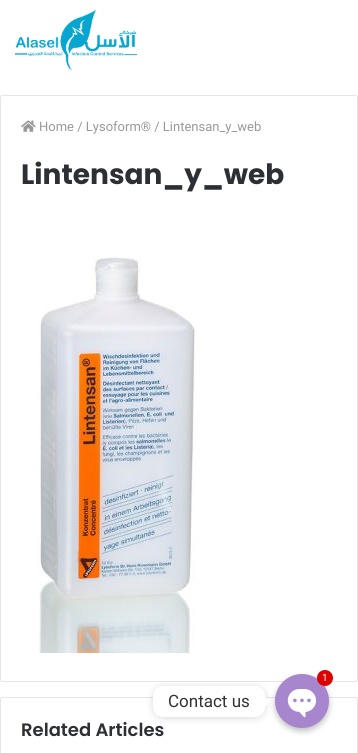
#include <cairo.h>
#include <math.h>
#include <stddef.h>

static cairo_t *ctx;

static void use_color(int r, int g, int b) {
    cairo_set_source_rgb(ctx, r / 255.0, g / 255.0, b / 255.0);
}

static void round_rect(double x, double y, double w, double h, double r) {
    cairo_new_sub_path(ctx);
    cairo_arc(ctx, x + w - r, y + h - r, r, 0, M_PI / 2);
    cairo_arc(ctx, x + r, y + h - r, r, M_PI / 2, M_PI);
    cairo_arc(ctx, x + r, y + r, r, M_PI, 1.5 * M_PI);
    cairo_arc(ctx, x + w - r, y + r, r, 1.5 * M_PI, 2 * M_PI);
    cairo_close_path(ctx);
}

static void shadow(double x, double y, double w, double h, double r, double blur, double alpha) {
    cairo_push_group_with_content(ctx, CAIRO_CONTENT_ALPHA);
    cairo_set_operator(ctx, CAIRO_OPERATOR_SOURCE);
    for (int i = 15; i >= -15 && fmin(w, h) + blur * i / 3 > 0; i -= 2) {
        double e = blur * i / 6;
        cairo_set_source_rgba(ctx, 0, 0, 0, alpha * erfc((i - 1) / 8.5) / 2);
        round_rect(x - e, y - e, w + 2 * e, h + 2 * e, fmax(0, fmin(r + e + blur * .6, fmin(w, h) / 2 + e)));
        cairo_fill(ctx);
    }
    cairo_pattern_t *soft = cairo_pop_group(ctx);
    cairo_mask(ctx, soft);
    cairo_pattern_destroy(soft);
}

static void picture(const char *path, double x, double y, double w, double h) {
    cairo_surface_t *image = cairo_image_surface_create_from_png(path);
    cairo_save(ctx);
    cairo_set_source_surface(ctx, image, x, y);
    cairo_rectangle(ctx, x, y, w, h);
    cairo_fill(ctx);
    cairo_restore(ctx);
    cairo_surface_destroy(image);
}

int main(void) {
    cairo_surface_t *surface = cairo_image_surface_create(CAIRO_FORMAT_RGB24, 358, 753);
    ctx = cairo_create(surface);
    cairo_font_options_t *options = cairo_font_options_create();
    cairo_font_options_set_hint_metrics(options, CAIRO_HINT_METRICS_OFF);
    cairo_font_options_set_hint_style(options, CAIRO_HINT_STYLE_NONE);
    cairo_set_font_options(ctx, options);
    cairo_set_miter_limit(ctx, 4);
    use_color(255, 255, 255);
    cairo_paint(ctx);
    picture("img1.png", 15, 10, 122, 60);
    round_rect(0.5, 95.5, 357, 586, 1.5);
    use_color(230, 230, 230);
    cairo_set_line_width(ctx, 1);
    cairo_stroke(ctx);
    picture("img2.png", 21, 120, 15, 12);
    cairo_select_font_face(ctx, "Roboto", CAIRO_FONT_SLANT_NORMAL, CAIRO_FONT_WEIGHT_NORMAL);
    cairo_set_font_size(ctx, 13);
    use_color(153, 153, 153);
    cairo_move_to(ctx, 39, 131);
    cairo_show_text(ctx, "Home / Lysoform® / Lintensan_y_web");
    cairo_select_font_face(ctx, "Poppins", CAIRO_FONT_SLANT_NORMAL, CAIRO_FONT_WEIGHT_BOLD);
    cairo_set_font_size(ctx, 28);
    use_color(44, 47, 52);
    cairo_move_to(ctx, 21, 184);
    cairo_show_text(ctx, "Lintensan_y_web");
    picture("img3.png", 38, 256, 158, 397);
    round_rect(0.5, 697.5, 357, 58, 1.5);
    use_color(230, 230, 230);
    cairo_stroke(ctx);
    cairo_select_font_face(ctx, "Poppins SemiBold", CAIRO_FONT_SLANT_NORMAL, CAIRO_FONT_WEIGHT_NORMAL);
    cairo_set_font_size(ctx, 18);
    use_color(44, 47, 52);
    cairo_move_to(ctx, 21, 736);
    cairo_show_text(ctx, "Related Articles");
    use_color(0, 0, 0);
    shadow(153, 687, 112, 31, 10, 4, 0.15);
    use_color(255, 255, 255);
    cairo_new_path(ctx);
    cairo_move_to(ctx, 265, 706.5);
    cairo_line_to(ctx, 265, 696.5);
    cairo_line_to(ctx, 270, 701.5);
    cairo_close_path(ctx);
    cairo_fill(ctx);
    use_color(0, 0, 0);
    shadow(275, 677, 54, 54, 27, 3, 0.25);
    picture("img4.png", 275, 674, 54, 54);
    use_color(221, 0, 0);
    cairo_arc(ctx, 325, 678, 8, 0, 2 * M_PI);
    cairo_fill(ctx);
    cairo_select_font_face(ctx, "Roboto", CAIRO_FONT_SLANT_NORMAL, CAIRO_FONT_WEIGHT_NORMAL);
    cairo_set_font_size(ctx, 10);
    use_color(255, 255, 255);
    cairo_move_to(ctx, 322, 681);
    cairo_show_text(ctx, "1");
    round_rect(153, 686, 112, 31, 10);
    cairo_fill(ctx);
    cairo_set_font_size(ctx, 17);
    use_color(51, 51, 51);
    cairo_move_to(ctx, 168, 707);
    cairo_show_text(ctx, "Contact us");
    cairo_surface_write_to_png(surface, "result.png");
    cairo_font_options_destroy(options);
    cairo_destroy(ctx);
    cairo_surface_destroy(surface);
    return 0;
}
